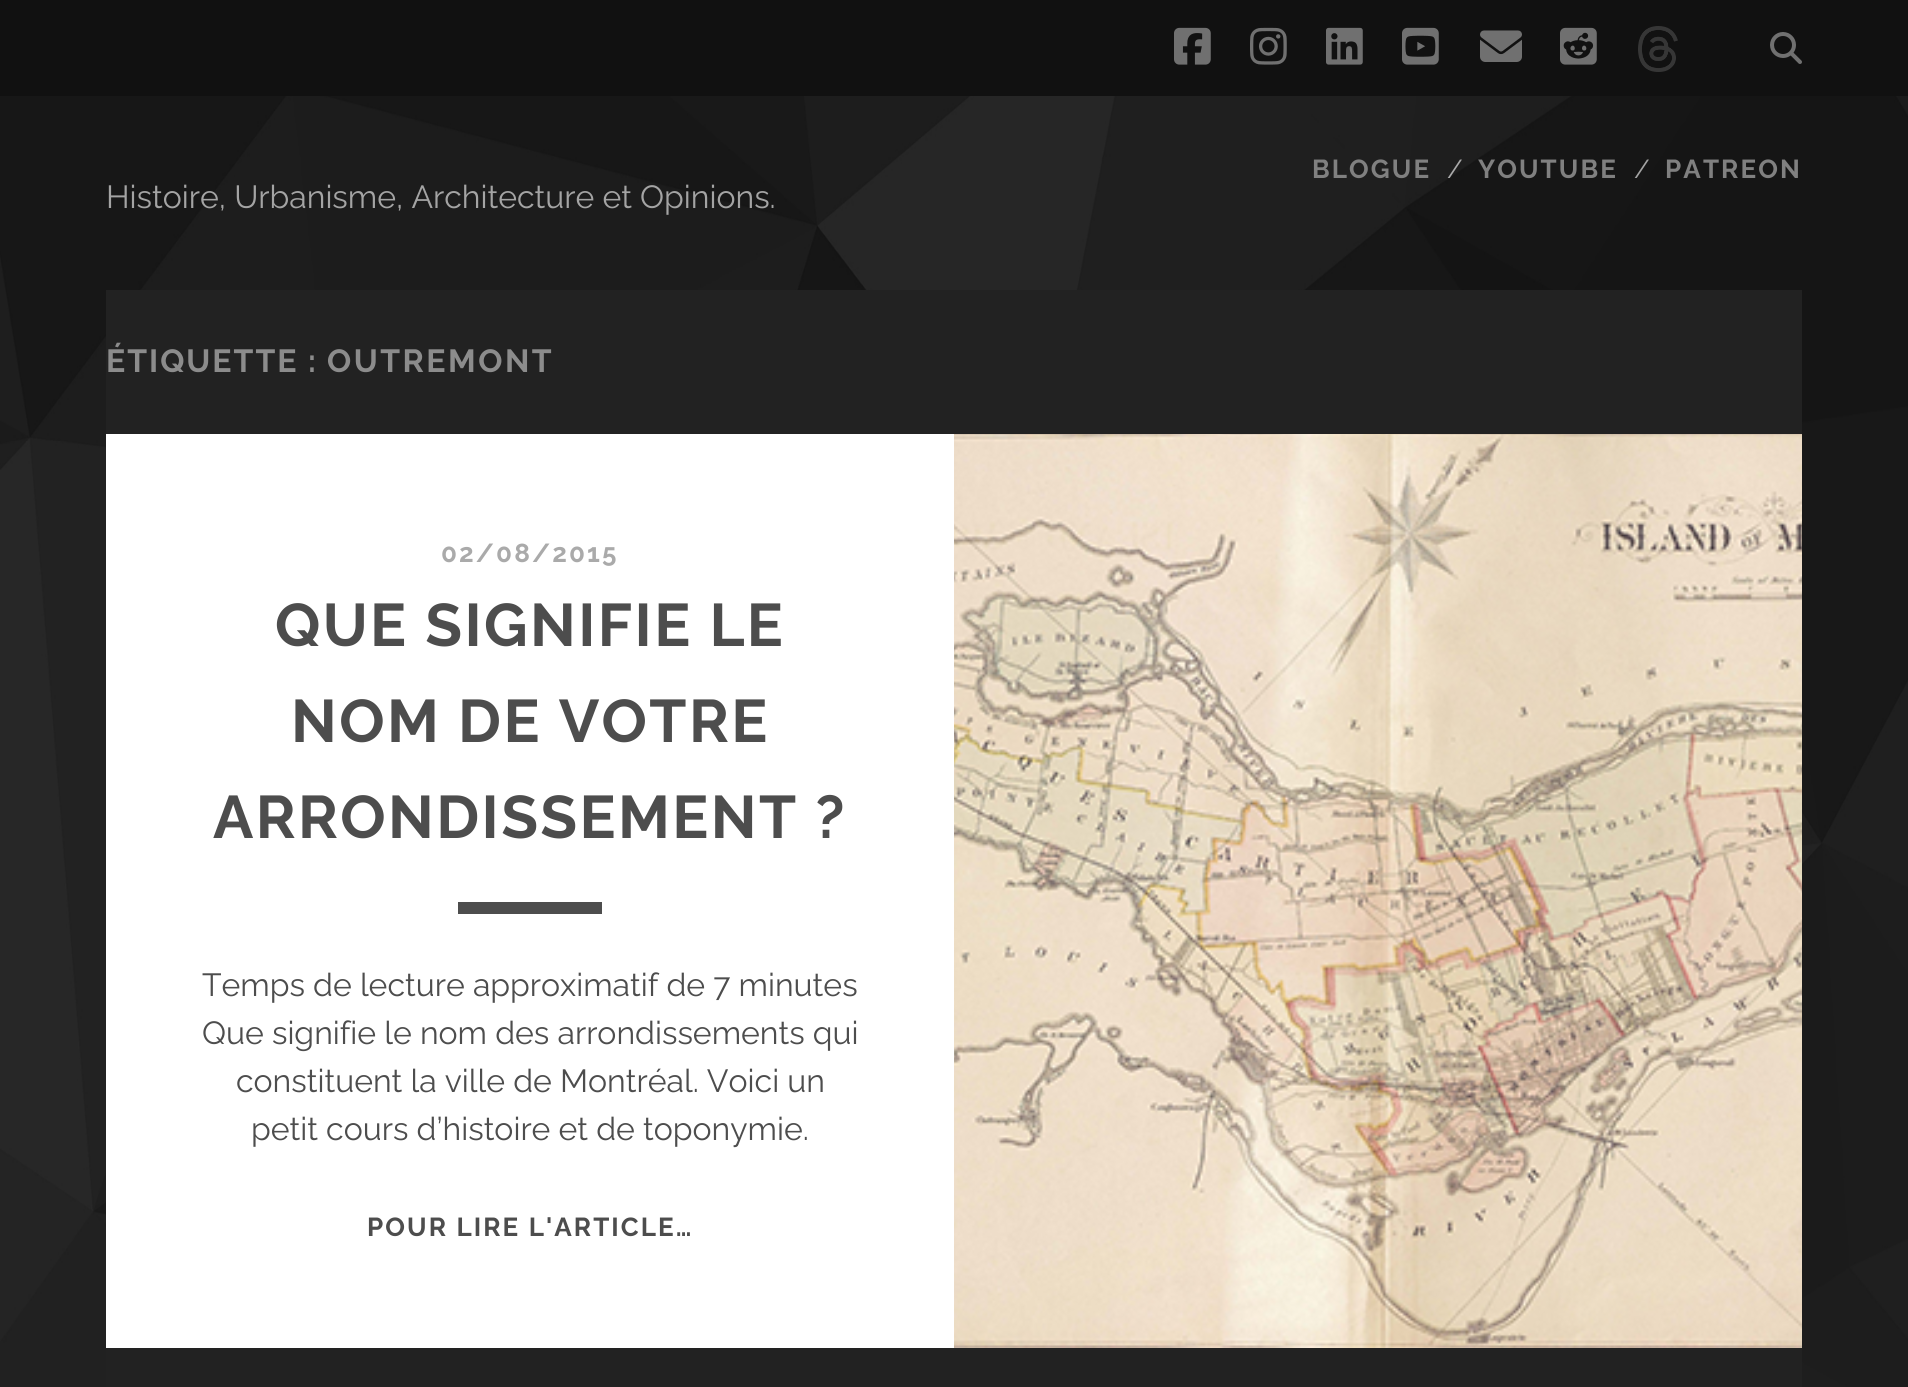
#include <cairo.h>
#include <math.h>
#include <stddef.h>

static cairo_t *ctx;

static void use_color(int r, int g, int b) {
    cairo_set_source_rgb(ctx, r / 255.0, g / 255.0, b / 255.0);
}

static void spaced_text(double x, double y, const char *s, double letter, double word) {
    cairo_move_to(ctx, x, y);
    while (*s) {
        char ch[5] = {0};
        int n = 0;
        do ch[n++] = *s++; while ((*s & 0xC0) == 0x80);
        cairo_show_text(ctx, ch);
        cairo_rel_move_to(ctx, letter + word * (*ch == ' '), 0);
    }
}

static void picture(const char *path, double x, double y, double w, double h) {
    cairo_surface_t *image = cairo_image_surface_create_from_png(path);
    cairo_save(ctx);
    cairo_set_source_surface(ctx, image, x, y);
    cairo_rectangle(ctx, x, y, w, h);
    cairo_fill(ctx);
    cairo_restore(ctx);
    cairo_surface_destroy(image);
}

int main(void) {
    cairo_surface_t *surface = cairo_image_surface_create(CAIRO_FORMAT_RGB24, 1908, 1387);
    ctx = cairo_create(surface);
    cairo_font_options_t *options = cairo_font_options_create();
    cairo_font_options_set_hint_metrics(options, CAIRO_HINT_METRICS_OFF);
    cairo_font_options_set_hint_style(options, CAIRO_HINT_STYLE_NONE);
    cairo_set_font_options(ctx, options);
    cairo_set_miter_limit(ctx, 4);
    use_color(255, 255, 255);
    cairo_paint(ctx);
    picture("img1.png", 0, 96, 1908, 1291);
    use_color(17, 17, 17);
    cairo_rectangle(ctx, 0, 0, 1908, 96);
    cairo_fill(ctx);
    picture("img2.png", 1174, 27, 37, 38);
    picture("img3.png", 1250, 27, 37, 38);
    picture("img4.png", 1326, 27, 37, 38);
    picture("img5.png", 1402, 27, 37, 38);
    picture("img6.png", 1480, 30, 42, 32);
    picture("img7.png", 1560, 27, 37, 38);
    picture("img8.png", 1638, 26, 40, 46);
    picture("img9.png", 1770, 32, 32, 32);
    cairo_select_font_face(ctx, "Raleway", CAIRO_FONT_SLANT_NORMAL, CAIRO_FONT_WEIGHT_BOLD);
    cairo_set_font_size(ctx, 26);
    use_color(128, 128, 128);
    spaced_text(1312, 178, "BLOGUE", 2.1, 0);
    cairo_select_font_face(ctx, "Raleway", CAIRO_FONT_SLANT_NORMAL, CAIRO_FONT_WEIGHT_NORMAL);
    use_color(170, 170, 170);
    cairo_move_to(ctx, 1447, 178);
    cairo_show_text(ctx, "/");
    cairo_select_font_face(ctx, "Raleway", CAIRO_FONT_SLANT_NORMAL, CAIRO_FONT_WEIGHT_BOLD);
    use_color(128, 128, 128);
    spaced_text(1478, 178, "YOUTUBE", 2.1, 0);
    cairo_select_font_face(ctx, "Raleway", CAIRO_FONT_SLANT_NORMAL, CAIRO_FONT_WEIGHT_NORMAL);
    use_color(164, 164, 164);
    cairo_move_to(ctx, 1634, 178);
    cairo_show_text(ctx, "/");
    cairo_select_font_face(ctx, "Raleway", CAIRO_FONT_SLANT_NORMAL, CAIRO_FONT_WEIGHT_BOLD);
    use_color(128, 128, 128);
    spaced_text(1665, 178, "PATREON", 2.1, 0);
    cairo_select_font_face(ctx, "Raleway", CAIRO_FONT_SLANT_NORMAL, CAIRO_FONT_WEIGHT_NORMAL);
    cairo_set_font_size(ctx, 32);
    use_color(164, 164, 164);
    cairo_move_to(ctx, 106, 208);
    cairo_show_text(ctx, "Histoire, Urbanisme, Architecture et Opinions.");
    use_color(34, 34, 34);
    cairo_rectangle(ctx, 106, 290, 1696, 1097);
    cairo_fill(ctx);
    cairo_select_font_face(ctx, "Raleway", CAIRO_FONT_SLANT_NORMAL, CAIRO_FONT_WEIGHT_BOLD);
    use_color(140, 140, 140);
    spaced_text(106, 372, "ÉTIQUETTE :", 2, 0);
    spaced_text(327, 372, "OUTREMONT", 2.5, 0);
    use_color(255, 255, 255);
    cairo_rectangle(ctx, 106, 434, 848, 914);
    cairo_fill(ctx);
    cairo_set_font_size(ctx, 26);
    use_color(170, 170, 170);
    spaced_text(441, 562, "02/08/2015", 2.1, 0);
    cairo_set_font_size(ctx, 60);
    use_color(77, 77, 77);
    spaced_text(275, 646, "QUE SIGNIFIE LE", 2.4, 0);
    spaced_text(291, 742, "NOM DE VOTRE", 2.4, 0);
    spaced_text(213, 838, "ARRONDISSEMENT ?", 2.4, 0);
    cairo_rectangle(ctx, 458, 902, 144, 12);
    cairo_fill(ctx);
    cairo_select_font_face(ctx, "Raleway", CAIRO_FONT_SLANT_NORMAL, CAIRO_FONT_WEIGHT_NORMAL);
    cairo_set_font_size(ctx, 32);
    cairo_move_to(ctx, 202, 996);
    cairo_show_text(ctx, "Temps de lecture approximatif de 7 minutes");
    cairo_move_to(ctx, 202, 1044);
    cairo_show_text(ctx, "Que signifie le nom des arrondissements qui");
    cairo_move_to(ctx, 236, 1092);
    cairo_show_text(ctx, "constituent la ville de Montréal. Voici un");
    cairo_move_to(ctx, 251, 1140);
    cairo_show_text(ctx, "petit cours d’histoire et de toponymie.");
    cairo_select_font_face(ctx, "Raleway", CAIRO_FONT_SLANT_NORMAL, CAIRO_FONT_WEIGHT_BOLD);
    cairo_set_font_size(ctx, 26);
    spaced_text(367, 1236, "POUR LIRE L'ARTICLE…", 2.1, 0);
    picture("img10.png", 954, 434, 848, 914);
    cairo_surface_write_to_png(surface, "result.png");
    cairo_font_options_destroy(options);
    cairo_destroy(ctx);
    cairo_surface_destroy(surface);
    return 0;
}
